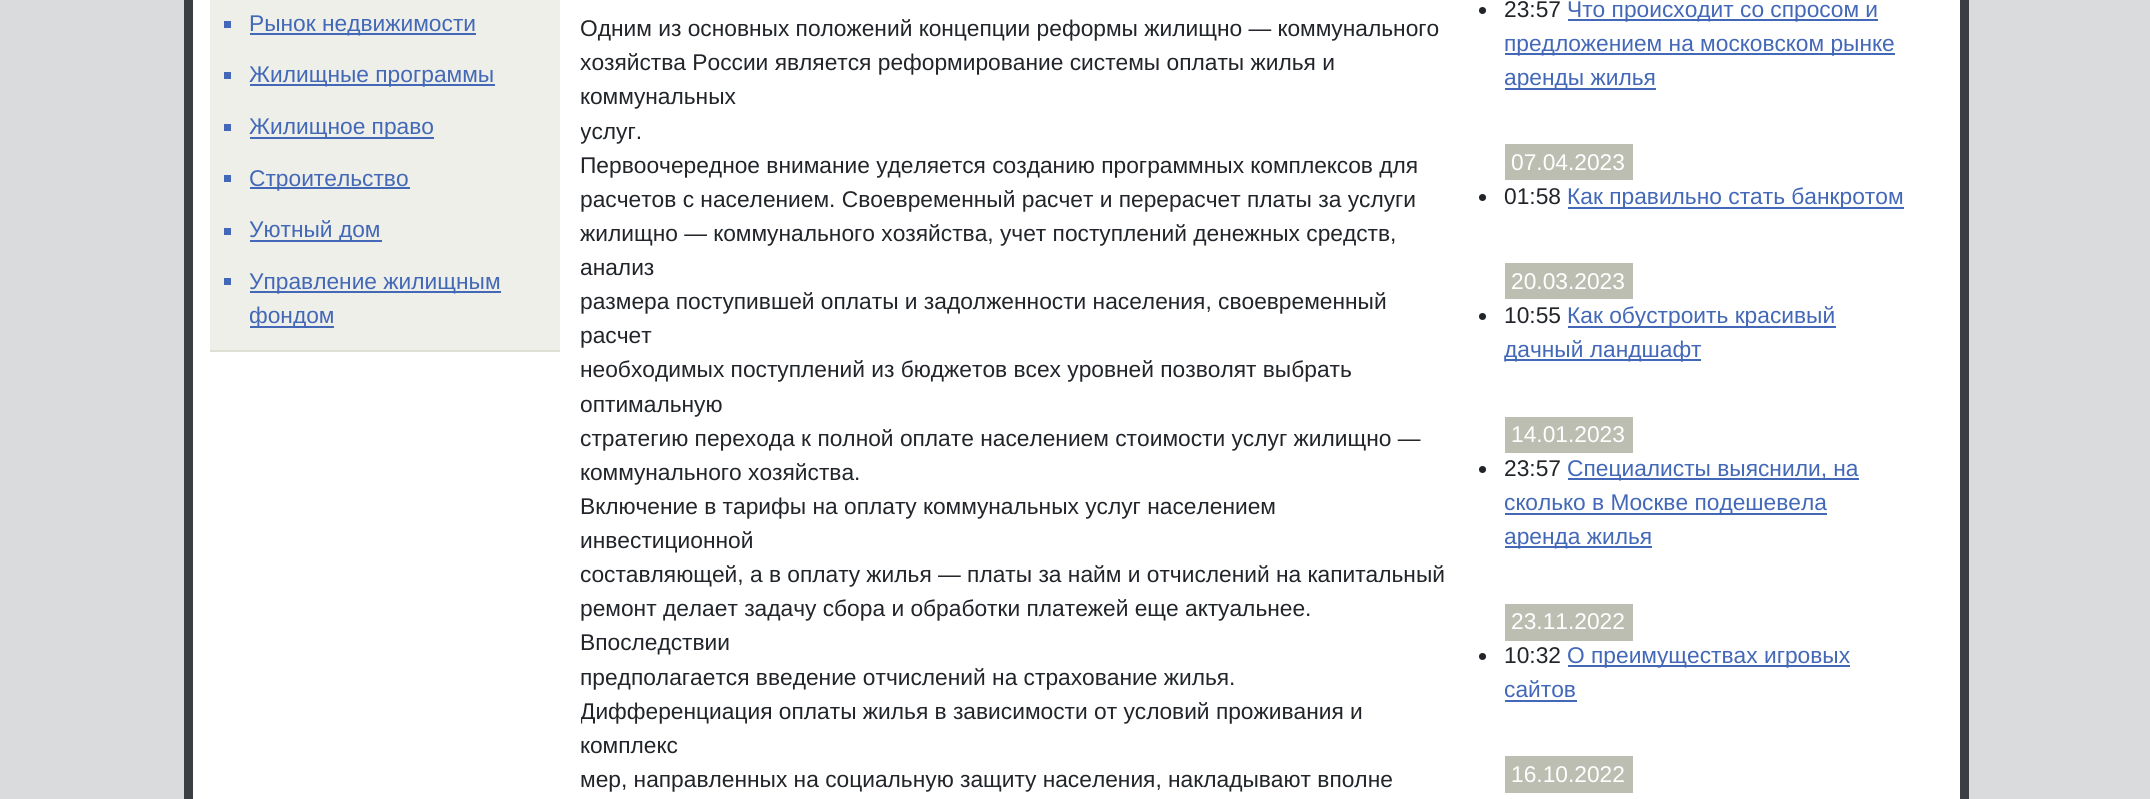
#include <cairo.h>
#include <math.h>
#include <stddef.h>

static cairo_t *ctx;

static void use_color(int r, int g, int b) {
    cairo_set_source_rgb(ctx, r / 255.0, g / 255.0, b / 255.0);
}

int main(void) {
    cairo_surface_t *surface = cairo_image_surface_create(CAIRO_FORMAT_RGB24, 2150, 799);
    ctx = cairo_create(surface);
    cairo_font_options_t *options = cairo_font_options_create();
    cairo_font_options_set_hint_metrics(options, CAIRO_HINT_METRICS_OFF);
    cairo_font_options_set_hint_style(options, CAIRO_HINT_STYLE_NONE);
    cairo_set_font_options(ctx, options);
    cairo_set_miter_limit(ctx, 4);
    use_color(218, 219, 221);
    cairo_paint(ctx);
    use_color(255, 255, 255);
    cairo_rectangle(ctx, 188.5, -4.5, 1776, 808);
    cairo_fill_preserve(ctx);
    use_color(59, 62, 67);
    cairo_set_line_width(ctx, 9);
    cairo_stroke(ctx);
    use_color(238, 239, 233);
    cairo_rectangle(ctx, 210, 0, 350, 350);
    cairo_fill(ctx);
    use_color(222, 224, 213);
    cairo_rectangle(ctx, 210, 350, 350, 2);
    cairo_fill(ctx);
    use_color(67, 104, 183);
    cairo_rectangle(ctx, 224, 21, 7, 7);
    cairo_fill(ctx);
    cairo_rectangle(ctx, 250, 33, 226, 2);
    cairo_fill(ctx);
    cairo_select_font_face(ctx, "Liberation Sans", CAIRO_FONT_SLANT_NORMAL, CAIRO_FONT_WEIGHT_NORMAL);
    cairo_set_font_size(ctx, 22.75);
    cairo_move_to(ctx, 249, 31);
    cairo_show_text(ctx, "Рынок недвижимости");
    cairo_rectangle(ctx, 224, 72, 7, 7);
    cairo_fill(ctx);
    cairo_rectangle(ctx, 250, 84, 245, 2);
    cairo_fill(ctx);
    cairo_move_to(ctx, 249, 82);
    cairo_show_text(ctx, "Жилищные программы");
    cairo_rectangle(ctx, 224, 124, 7, 7);
    cairo_fill(ctx);
    cairo_rectangle(ctx, 250, 137, 184, 2);
    cairo_fill(ctx);
    cairo_move_to(ctx, 249, 134);
    cairo_show_text(ctx, "Жилищное право");
    cairo_rectangle(ctx, 224, 175, 7, 7);
    cairo_fill(ctx);
    cairo_rectangle(ctx, 250, 187, 160, 2);
    cairo_fill(ctx);
    cairo_move_to(ctx, 249, 186);
    cairo_show_text(ctx, "Строительство");
    cairo_rectangle(ctx, 224, 228, 7, 7);
    cairo_fill(ctx);
    cairo_rectangle(ctx, 250, 240, 132, 2);
    cairo_fill(ctx);
    cairo_move_to(ctx, 249, 237);
    cairo_show_text(ctx, "Уютный дом");
    cairo_rectangle(ctx, 224, 278, 7, 7);
    cairo_fill(ctx);
    cairo_rectangle(ctx, 250, 291, 251, 2);
    cairo_fill(ctx);
    cairo_move_to(ctx, 249, 289);
    cairo_show_text(ctx, "Управление жилищным");
    cairo_rectangle(ctx, 250, 326, 84, 2);
    cairo_fill(ctx);
    cairo_move_to(ctx, 249, 323);
    cairo_show_text(ctx, "фондом");
    use_color(33, 37, 41);
    cairo_move_to(ctx, 580, 36);
    cairo_show_text(ctx, "Одним из основных положений концепции реформы жилищно — коммунального");
    cairo_move_to(ctx, 580, 70);
    cairo_show_text(ctx, "хозяйства России является реформирование системы оплаты жилья и");
    cairo_move_to(ctx, 580, 104);
    cairo_show_text(ctx, "коммунальных");
    cairo_save(ctx);
    cairo_rectangle(ctx, 581, 0, 868, 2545);
    cairo_clip(ctx);
    cairo_move_to(ctx, 580, 139);
    cairo_show_text(ctx, "услуг.");
    cairo_restore(ctx);
    cairo_move_to(ctx, 580, 173);
    cairo_show_text(ctx, "Первоочередное внимание уделяется созданию программных комплексов для");
    cairo_move_to(ctx, 580, 207);
    cairo_show_text(ctx, "расчетов с населением. Своевременный расчет и перерасчет платы за услуги");
    cairo_move_to(ctx, 580, 241);
    cairo_show_text(ctx, "жилищно — коммунального хозяйства, учет поступлений денежных средств,");
    cairo_move_to(ctx, 580, 275);
    cairo_show_text(ctx, "анализ");
    cairo_move_to(ctx, 580, 309);
    cairo_show_text(ctx, "размера поступившей оплаты и задолженности населения, своевременный");
    cairo_move_to(ctx, 580, 343);
    cairo_show_text(ctx, "расчет");
    cairo_move_to(ctx, 580, 377);
    cairo_show_text(ctx, "необходимых поступлений из бюджетов всех уровней позволят выбрать");
    cairo_move_to(ctx, 580, 412);
    cairo_show_text(ctx, "оптимальную");
    cairo_move_to(ctx, 580, 446);
    cairo_show_text(ctx, "стратегию перехода к полной оплате населением стоимости услуг жилищно —");
    cairo_move_to(ctx, 580, 480);
    cairo_show_text(ctx, "коммунального хозяйства.");
    cairo_move_to(ctx, 580, 514);
    cairo_show_text(ctx, "Включение в тарифы на оплату коммунальных услуг населением");
    cairo_move_to(ctx, 580, 548);
    cairo_show_text(ctx, "инвестиционной");
    cairo_move_to(ctx, 580, 582);
    cairo_show_text(ctx, "составляющей, а в оплату жилья — платы за найм и отчислений на капитальный");
    cairo_move_to(ctx, 580, 616);
    cairo_show_text(ctx, "ремонт делает задачу сбора и обработки платежей еще актуальнее.");
    cairo_move_to(ctx, 580, 650);
    cairo_show_text(ctx, "Впоследствии");
    cairo_move_to(ctx, 580, 685);
    cairo_show_text(ctx, "предполагается введение отчислений на страхование жилья.");
    cairo_save(ctx);
    cairo_rectangle(ctx, 581, 0, 868, 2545);
    cairo_clip(ctx);
    cairo_move_to(ctx, 580, 719);
    cairo_show_text(ctx, "Дифференциация оплаты жилья в зависимости от условий проживания и");
    cairo_restore(ctx);
    cairo_move_to(ctx, 580, 753);
    cairo_show_text(ctx, "комплекс");
    cairo_move_to(ctx, 580, 787);
    cairo_show_text(ctx, "мер, направленных на социальную защиту населения, накладывают вполне");
    cairo_new_path(ctx);
    cairo_arc(ctx, 1482.5, 10.5, 3.5, 0, 2 * M_PI);
    cairo_fill(ctx);
    cairo_move_to(ctx, 1504, 17);
    cairo_show_text(ctx, "23:57");
    use_color(67, 104, 183);
    cairo_rectangle(ctx, 1568, 19, 310, 2);
    cairo_fill(ctx);
    cairo_move_to(ctx, 1567, 17);
    cairo_show_text(ctx, "Что происходит со спросом и");
    cairo_rectangle(ctx, 1505, 53, 390, 2);
    cairo_fill(ctx);
    cairo_move_to(ctx, 1504, 51);
    cairo_show_text(ctx, "предложением на московском рынке");
    cairo_rectangle(ctx, 1505, 88, 151, 2);
    cairo_fill(ctx);
    cairo_move_to(ctx, 1504, 85);
    cairo_show_text(ctx, "аренды жилья");
    use_color(188, 190, 177);
    cairo_rectangle(ctx, 1505, 144, 128, 36);
    cairo_fill(ctx);
    use_color(255, 255, 255);
    cairo_move_to(ctx, 1511, 170);
    cairo_show_text(ctx, "07.04.2023");
    use_color(33, 37, 41);
    cairo_new_path(ctx);
    cairo_arc(ctx, 1482.5, 197.5, 3.5, 0, 2 * M_PI);
    cairo_fill(ctx);
    cairo_move_to(ctx, 1504, 204);
    cairo_show_text(ctx, "01:58");
    use_color(67, 104, 183);
    cairo_rectangle(ctx, 1568, 207, 336, 2);
    cairo_fill(ctx);
    cairo_move_to(ctx, 1567, 204);
    cairo_show_text(ctx, "Как правильно стать банкротом");
    use_color(188, 190, 177);
    cairo_rectangle(ctx, 1505, 263, 128, 36);
    cairo_fill(ctx);
    use_color(255, 255, 255);
    cairo_move_to(ctx, 1511, 289);
    cairo_show_text(ctx, "20.03.2023");
    use_color(33, 37, 41);
    cairo_new_path(ctx);
    cairo_arc(ctx, 1482.5, 316.5, 3.5, 0, 2 * M_PI);
    cairo_fill(ctx);
    cairo_move_to(ctx, 1504, 323);
    cairo_show_text(ctx, "10:55");
    use_color(67, 104, 183);
    cairo_rectangle(ctx, 1568, 326, 268, 2);
    cairo_fill(ctx);
    cairo_move_to(ctx, 1567, 323);
    cairo_show_text(ctx, "Как обустроить красивый");
    cairo_rectangle(ctx, 1505, 359, 196, 2);
    cairo_fill(ctx);
    cairo_move_to(ctx, 1504, 357);
    cairo_show_text(ctx, "дачный ландшафт");
    use_color(188, 190, 177);
    cairo_rectangle(ctx, 1505, 417, 128, 36);
    cairo_fill(ctx);
    use_color(255, 255, 255);
    cairo_move_to(ctx, 1511, 442);
    cairo_show_text(ctx, "14.01.2023");
    use_color(33, 37, 41);
    cairo_new_path(ctx);
    cairo_arc(ctx, 1482.5, 469.5, 3.5, 0, 2 * M_PI);
    cairo_fill(ctx);
    cairo_move_to(ctx, 1504, 476);
    cairo_show_text(ctx, "23:57");
    use_color(67, 104, 183);
    cairo_rectangle(ctx, 1568, 478, 291, 2);
    cairo_fill(ctx);
    cairo_move_to(ctx, 1567, 476);
    cairo_show_text(ctx, "Специалисты выяснили, на");
    cairo_rectangle(ctx, 1505, 513, 322, 2);
    cairo_fill(ctx);
    cairo_move_to(ctx, 1504, 510);
    cairo_show_text(ctx, "сколько в Москве подешевела");
    cairo_rectangle(ctx, 1505, 546, 147, 2);
    cairo_fill(ctx);
    cairo_move_to(ctx, 1504, 544);
    cairo_show_text(ctx, "аренда жилья");
    use_color(188, 190, 177);
    cairo_rectangle(ctx, 1505, 604, 128, 37);
    cairo_fill(ctx);
    use_color(255, 255, 255);
    cairo_move_to(ctx, 1511, 629);
    cairo_show_text(ctx, "23.11.2022");
    use_color(33, 37, 41);
    cairo_new_path(ctx);
    cairo_arc(ctx, 1482.5, 656.5, 3.5, 0, 2 * M_PI);
    cairo_fill(ctx);
    cairo_move_to(ctx, 1504, 663);
    cairo_show_text(ctx, "10:32");
    use_color(67, 104, 183);
    cairo_rectangle(ctx, 1568, 665, 282, 2);
    cairo_fill(ctx);
    cairo_move_to(ctx, 1567, 663);
    cairo_show_text(ctx, "О преимуществах игровых");
    cairo_move_to(ctx, 1504, 697);
    cairo_show_text(ctx, "сайтов");
    cairo_rectangle(ctx, 1505, 700, 72, 2);
    cairo_fill(ctx);
    use_color(188, 190, 177);
    cairo_rectangle(ctx, 1505, 756, 128, 37);
    cairo_fill(ctx);
    use_color(255, 255, 255);
    cairo_move_to(ctx, 1511, 782);
    cairo_show_text(ctx, "16.10.2022");
    cairo_surface_write_to_png(surface, "result.png");
    cairo_font_options_destroy(options);
    cairo_destroy(ctx);
    cairo_surface_destroy(surface);
    return 0;
}
